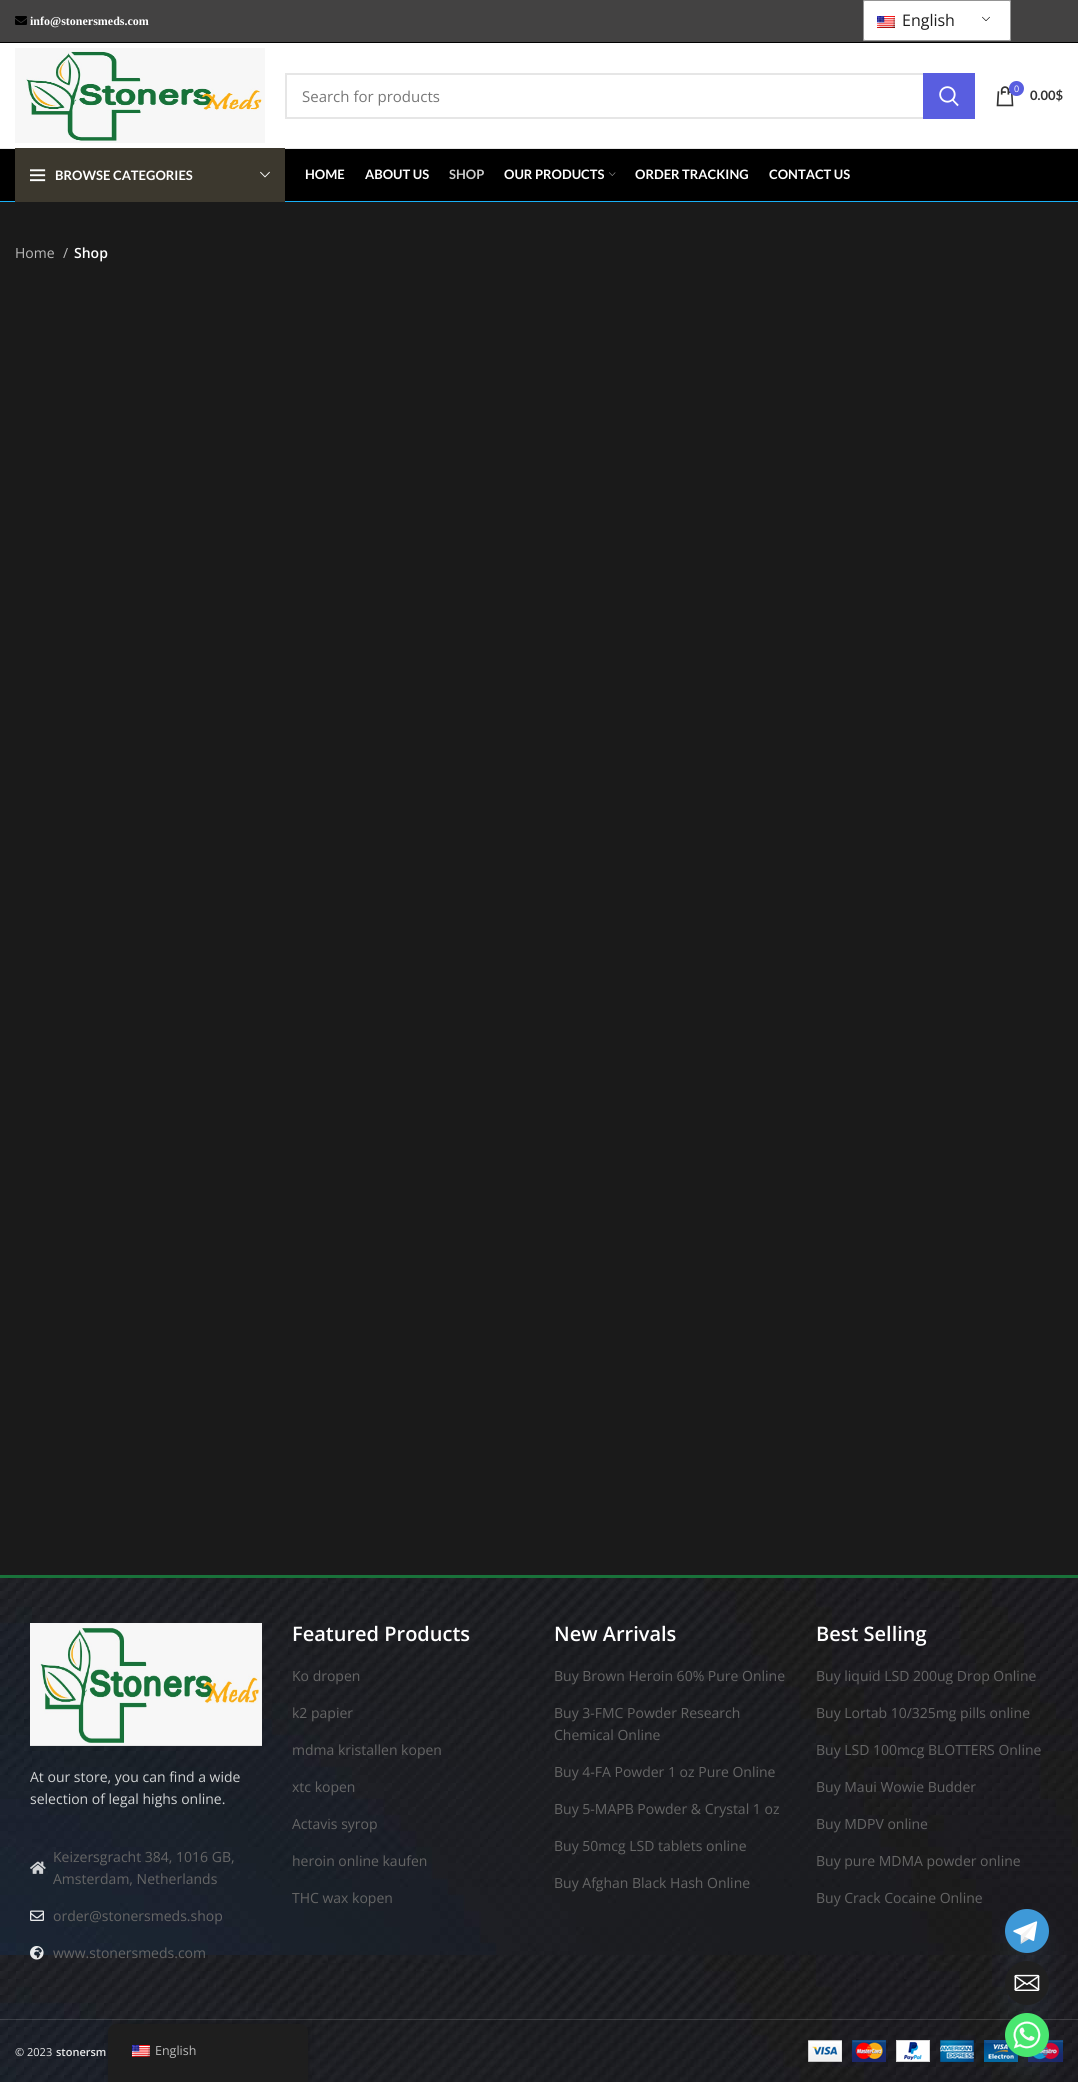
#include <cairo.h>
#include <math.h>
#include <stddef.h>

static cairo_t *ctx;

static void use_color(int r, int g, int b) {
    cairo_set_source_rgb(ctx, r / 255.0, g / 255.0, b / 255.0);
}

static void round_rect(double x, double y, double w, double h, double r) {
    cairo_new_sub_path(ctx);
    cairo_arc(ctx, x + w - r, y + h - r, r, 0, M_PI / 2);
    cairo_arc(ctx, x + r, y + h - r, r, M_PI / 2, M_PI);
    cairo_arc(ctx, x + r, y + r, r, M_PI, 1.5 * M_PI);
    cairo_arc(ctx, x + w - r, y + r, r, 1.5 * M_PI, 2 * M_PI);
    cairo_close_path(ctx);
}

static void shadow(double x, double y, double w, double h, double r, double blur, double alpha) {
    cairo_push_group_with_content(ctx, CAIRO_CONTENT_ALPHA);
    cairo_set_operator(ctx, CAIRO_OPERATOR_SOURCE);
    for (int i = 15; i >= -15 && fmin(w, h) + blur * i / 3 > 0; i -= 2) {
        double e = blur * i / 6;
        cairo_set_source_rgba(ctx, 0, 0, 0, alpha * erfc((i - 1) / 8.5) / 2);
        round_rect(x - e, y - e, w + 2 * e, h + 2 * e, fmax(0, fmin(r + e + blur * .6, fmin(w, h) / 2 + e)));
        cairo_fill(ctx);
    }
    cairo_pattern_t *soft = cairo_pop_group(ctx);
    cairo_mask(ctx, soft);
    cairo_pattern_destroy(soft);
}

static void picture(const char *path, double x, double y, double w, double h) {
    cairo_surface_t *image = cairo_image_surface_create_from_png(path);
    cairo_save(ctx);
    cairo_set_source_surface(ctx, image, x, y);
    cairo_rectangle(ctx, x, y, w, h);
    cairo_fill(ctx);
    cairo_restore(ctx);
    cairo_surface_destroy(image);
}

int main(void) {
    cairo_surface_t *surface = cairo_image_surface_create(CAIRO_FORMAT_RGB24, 1078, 2082);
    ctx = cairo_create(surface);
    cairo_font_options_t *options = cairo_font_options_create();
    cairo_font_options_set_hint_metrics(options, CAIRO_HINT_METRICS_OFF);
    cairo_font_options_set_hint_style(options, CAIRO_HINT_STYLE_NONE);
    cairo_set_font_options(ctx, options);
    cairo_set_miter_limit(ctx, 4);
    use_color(26, 26, 26);
    cairo_paint(ctx);
    use_color(67, 66, 66);
    cairo_rectangle(ctx, 0, 0, 1078, 42);
    cairo_fill(ctx);
    use_color(0, 0, 0);
    cairo_rectangle(ctx, 0, 42, 1078, 1);
    cairo_fill(ctx);
    picture("img1.png", 15, 16, 12, 9);
    cairo_select_font_face(ctx, "Liberation Serif", CAIRO_FONT_SLANT_NORMAL, CAIRO_FONT_WEIGHT_BOLD);
    cairo_set_font_size(ctx, 12);
    use_color(255, 255, 255);
    cairo_move_to(ctx, 30, 25);
    cairo_show_text(ctx, "info@stonersmeds.com");
    round_rect(863, 0, 148, 41, 2);
    cairo_fill(ctx);
    picture("img2.png", 982, 16, 8, 5);
    round_rect(863.5, 0.5, 147, 40, 1.5);
    use_color(148, 148, 148);
    cairo_set_line_width(ctx, 1);
    cairo_stroke(ctx);
    picture("img3.png", 877, 16, 18, 12);
    cairo_select_font_face(ctx, "Open Sans", CAIRO_FONT_SLANT_NORMAL, CAIRO_FONT_WEIGHT_NORMAL);
    cairo_set_font_size(ctx, 16);
    use_color(30, 30, 30);
    cairo_move_to(ctx, 902, 26);
    cairo_show_text(ctx, "English");
    use_color(255, 255, 255);
    cairo_rectangle(ctx, 0, 43, 1078, 105);
    cairo_fill(ctx);
    use_color(232, 232, 232);
    cairo_rectangle(ctx, 0, 148, 1078, 1);
    cairo_fill(ctx);
    picture("img4.png", 15, 48, 250, 95);
    cairo_rectangle(ctx, 286, 74, 688, 44);
    use_color(230, 230, 230);
    cairo_set_line_width(ctx, 2);
    cairo_stroke(ctx);
    cairo_set_font_size(ctx, 15);
    use_color(119, 119, 119);
    cairo_move_to(ctx, 302, 102);
    cairo_show_text(ctx, "Search for products");
    use_color(89, 94, 224);
    cairo_rectangle(ctx, 923, 73, 52, 46);
    cairo_fill(ctx);
    picture("img5.png", 939, 86, 20, 21);
    picture("img6.png", 996, 86, 18, 21);
    cairo_arc(ctx, 1016.5, 88.5, 7.5, 0, 2 * M_PI);
    cairo_fill(ctx);
    cairo_set_font_size(ctx, 9);
    use_color(255, 255, 255);
    cairo_move_to(ctx, 1014, 92);
    cairo_show_text(ctx, "0");
    cairo_select_font_face(ctx, "Lato", CAIRO_FONT_SLANT_NORMAL, CAIRO_FONT_WEIGHT_BOLD);
    cairo_set_font_size(ctx, 13);
    use_color(51, 51, 51);
    cairo_move_to(ctx, 1030, 100);
    cairo_show_text(ctx, "0.00$");
    use_color(0, 0, 0);
    cairo_rectangle(ctx, 0, 149, 1078, 52);
    cairo_fill(ctx);
    use_color(25, 176, 246);
    cairo_rectangle(ctx, 0, 201, 1078, 1);
    cairo_fill(ctx);
    use_color(60, 56, 46);
    cairo_rectangle(ctx, 15, 148, 270, 54);
    cairo_fill(ctx);
    picture("img7.png", 30, 169, 16, 13);
    use_color(255, 255, 255);
    cairo_move_to(ctx, 55, 180);
    cairo_show_text(ctx, "BROWSE CATEGORIES");
    picture("img8.png", 260, 171, 10, 7);
    cairo_move_to(ctx, 305, 179);
    cairo_show_text(ctx, "HOME");
    cairo_move_to(ctx, 365, 179);
    cairo_show_text(ctx, "ABOUT US");
    use_color(204, 204, 204);
    cairo_move_to(ctx, 449, 179);
    cairo_show_text(ctx, "SHOP");
    use_color(255, 255, 255);
    cairo_move_to(ctx, 504, 179);
    cairo_show_text(ctx, "OUR PRODUCTS");
    picture("img9.png", 609, 172, 7, 4);
    cairo_move_to(ctx, 635, 179);
    cairo_show_text(ctx, "ORDER TRACKING");
    cairo_move_to(ctx, 769, 179);
    cairo_show_text(ctx, "CONTACT US");
    cairo_select_font_face(ctx, "Open Sans", CAIRO_FONT_SLANT_NORMAL, CAIRO_FONT_WEIGHT_NORMAL);
    cairo_set_font_size(ctx, 14);
    use_color(186, 186, 186);
    cairo_move_to(ctx, 15, 258);
    cairo_show_text(ctx, "Home");
    cairo_move_to(ctx, 63, 258);
    cairo_show_text(ctx, "/");
    cairo_select_font_face(ctx, "Open Sans SemiBold", CAIRO_FONT_SLANT_NORMAL, CAIRO_FONT_WEIGHT_NORMAL);
    use_color(255, 255, 255);
    cairo_move_to(ctx, 74, 258);
    cairo_show_text(ctx, "Shop");
    picture("img10.png", 0, 1578, 1078, 504);
    use_color(25, 114, 58);
    cairo_rectangle(ctx, 0, 1575, 1078, 3);
    cairo_fill(ctx);
    picture("img11.png", 30, 1623, 232, 123);
    cairo_select_font_face(ctx, "Open Sans", CAIRO_FONT_SLANT_NORMAL, CAIRO_FONT_WEIGHT_NORMAL);
    use_color(209, 211, 212);
    cairo_move_to(ctx, 30, 1782);
    cairo_show_text(ctx, "At our store, you can find a wide");
    cairo_move_to(ctx, 30, 1804);
    cairo_show_text(ctx, "selection of legal highs online.");
    picture("img12.png", 30, 1861, 16, 13);
    use_color(101, 101, 101);
    cairo_move_to(ctx, 53, 1862);
    cairo_show_text(ctx, "Keizersgracht 384, 1016 GB,");
    cairo_move_to(ctx, 53, 1884);
    cairo_show_text(ctx, "Amsterdam, Netherlands");
    picture("img13.png", 30, 1910, 14, 11);
    cairo_move_to(ctx, 53, 1921);
    cairo_show_text(ctx, "order@stonersmeds.shop");
    picture("img14.png", 30, 1946, 14, 14);
    cairo_move_to(ctx, 53, 1958);
    cairo_show_text(ctx, "www.stonersmeds.com");
    cairo_select_font_face(ctx, "Open Sans SemiBold", CAIRO_FONT_SLANT_NORMAL, CAIRO_FONT_WEIGHT_NORMAL);
    cairo_set_font_size(ctx, 20);
    use_color(255, 255, 255);
    cairo_move_to(ctx, 292, 1641);
    cairo_show_text(ctx, "Featured Products");
    cairo_select_font_face(ctx, "Open Sans", CAIRO_FONT_SLANT_NORMAL, CAIRO_FONT_WEIGHT_NORMAL);
    cairo_set_font_size(ctx, 14);
    use_color(101, 101, 101);
    cairo_move_to(ctx, 292, 1681);
    cairo_show_text(ctx, "Ko dropen");
    cairo_move_to(ctx, 292, 1718);
    cairo_show_text(ctx, "k2 papier");
    cairo_move_to(ctx, 292, 1755);
    cairo_show_text(ctx, "mdma kristallen kopen");
    cairo_move_to(ctx, 292, 1792);
    cairo_show_text(ctx, "xtc kopen");
    cairo_move_to(ctx, 292, 1829);
    cairo_show_text(ctx, "Actavis syrop");
    cairo_move_to(ctx, 292, 1866);
    cairo_show_text(ctx, "heroin online kaufen");
    cairo_move_to(ctx, 292, 1903);
    cairo_show_text(ctx, "THC wax kopen");
    cairo_select_font_face(ctx, "Open Sans SemiBold", CAIRO_FONT_SLANT_NORMAL, CAIRO_FONT_WEIGHT_NORMAL);
    cairo_set_font_size(ctx, 20);
    use_color(255, 255, 255);
    cairo_move_to(ctx, 554, 1641);
    cairo_show_text(ctx, "New Arrivals");
    cairo_select_font_face(ctx, "Open Sans", CAIRO_FONT_SLANT_NORMAL, CAIRO_FONT_WEIGHT_NORMAL);
    cairo_set_font_size(ctx, 14);
    use_color(101, 101, 101);
    cairo_move_to(ctx, 554, 1681);
    cairo_show_text(ctx, "Buy Brown Heroin 60% Pure Online");
    cairo_move_to(ctx, 554, 1718);
    cairo_show_text(ctx, "Buy 3-FMC Powder Research");
    cairo_move_to(ctx, 554, 1740);
    cairo_show_text(ctx, "Chemical Online");
    cairo_move_to(ctx, 554, 1777);
    cairo_show_text(ctx, "Buy 4-FA Powder 1 oz Pure Online");
    cairo_move_to(ctx, 554, 1814);
    cairo_show_text(ctx, "Buy 5-MAPB Powder & Crystal 1 oz");
    cairo_move_to(ctx, 554, 1851);
    cairo_show_text(ctx, "Buy 50mcg LSD tablets online");
    cairo_move_to(ctx, 554, 1888);
    cairo_show_text(ctx, "Buy Afghan Black Hash Online");
    cairo_select_font_face(ctx, "Open Sans SemiBold", CAIRO_FONT_SLANT_NORMAL, CAIRO_FONT_WEIGHT_NORMAL);
    cairo_set_font_size(ctx, 20);
    use_color(255, 255, 255);
    cairo_move_to(ctx, 816, 1641);
    cairo_show_text(ctx, "Best Selling");
    cairo_select_font_face(ctx, "Open Sans", CAIRO_FONT_SLANT_NORMAL, CAIRO_FONT_WEIGHT_NORMAL);
    cairo_set_font_size(ctx, 14);
    use_color(101, 101, 101);
    cairo_move_to(ctx, 816, 1681);
    cairo_show_text(ctx, "Buy liquid LSD 200ug Drop Online");
    cairo_move_to(ctx, 816, 1718);
    cairo_show_text(ctx, "Buy Lortab 10/325mg pills online");
    cairo_move_to(ctx, 816, 1755);
    cairo_show_text(ctx, "Buy LSD 100mcg BLOTTERS Online");
    cairo_move_to(ctx, 816, 1792);
    cairo_show_text(ctx, "Buy Maui Wowie Budder");
    cairo_move_to(ctx, 816, 1829);
    cairo_show_text(ctx, "Buy MDPV online");
    cairo_move_to(ctx, 816, 1866);
    cairo_show_text(ctx, "Buy pure MDMA powder online");
    cairo_move_to(ctx, 816, 1903);
    cairo_show_text(ctx, "Buy Crack Cocaine Online");
    cairo_set_source_rgba(ctx, 1, 1, 1, 0.15);
    cairo_rectangle(ctx, 0, 2019, 1078, 1);
    cairo_fill(ctx);
    cairo_set_font_size(ctx, 11);
    use_color(232, 233, 234);
    cairo_move_to(ctx, 15, 2056);
    cairo_show_text(ctx, "© 2023");
    cairo_select_font_face(ctx, "Open Sans SemiBold", CAIRO_FONT_SLANT_NORMAL, CAIRO_FONT_WEIGHT_NORMAL);
    cairo_move_to(ctx, 56, 2056);
    cairo_show_text(ctx, "stonersm");
    picture("img15.png", 808, 2040, 255, 22);
    use_color(0, 0, 0);
    shadow(108, 2024, 200, 58, 8, 4, 0.25);
    use_color(30, 30, 30);
    cairo_new_path(ctx);
    cairo_move_to(ctx, 116, 2024);
    cairo_line_to(ctx, 300, 2024);
    cairo_curve_to(ctx, 304.5, 2024, 308, 2027.5, 308, 2032);
    cairo_line_to(ctx, 308, 2082);
    cairo_line_to(ctx, 108, 2082);
    cairo_line_to(ctx, 108, 2032);
    cairo_curve_to(ctx, 108, 2027.5, 111.5, 2024, 116, 2024);
    cairo_close_path(ctx);
    cairo_fill(ctx);
    picture("img3.png", 132, 2045, 18, 12);
    cairo_select_font_face(ctx, "Open Sans", CAIRO_FONT_SLANT_NORMAL, CAIRO_FONT_WEIGHT_NORMAL);
    cairo_set_font_size(ctx, 12.5);
    use_color(186, 186, 186);
    cairo_move_to(ctx, 155, 2055);
    cairo_show_text(ctx, "English");
    use_color(73, 104, 126);
    shadow(1005, 1925, 44, 44, 22, 12, 0.16);
    picture("img16.png", 1005, 1909, 44, 44);
    shadow(1005, 1977, 44, 44, 22, 12, 0.16);
    use_color(32, 32, 32);
    cairo_arc(ctx, 1027, 1983, 22, 0, 2 * M_PI);
    cairo_fill(ctx);
    picture("img17.png", 1014, 1974, 26, 17);
    use_color(73, 104, 126);
    shadow(1005, 2029, 44, 44, 22, 12, 0.16);
    picture("img18.png", 1005, 2013, 44, 44);
    cairo_surface_write_to_png(surface, "result.png");
    cairo_font_options_destroy(options);
    cairo_destroy(ctx);
    cairo_surface_destroy(surface);
    return 0;
}
